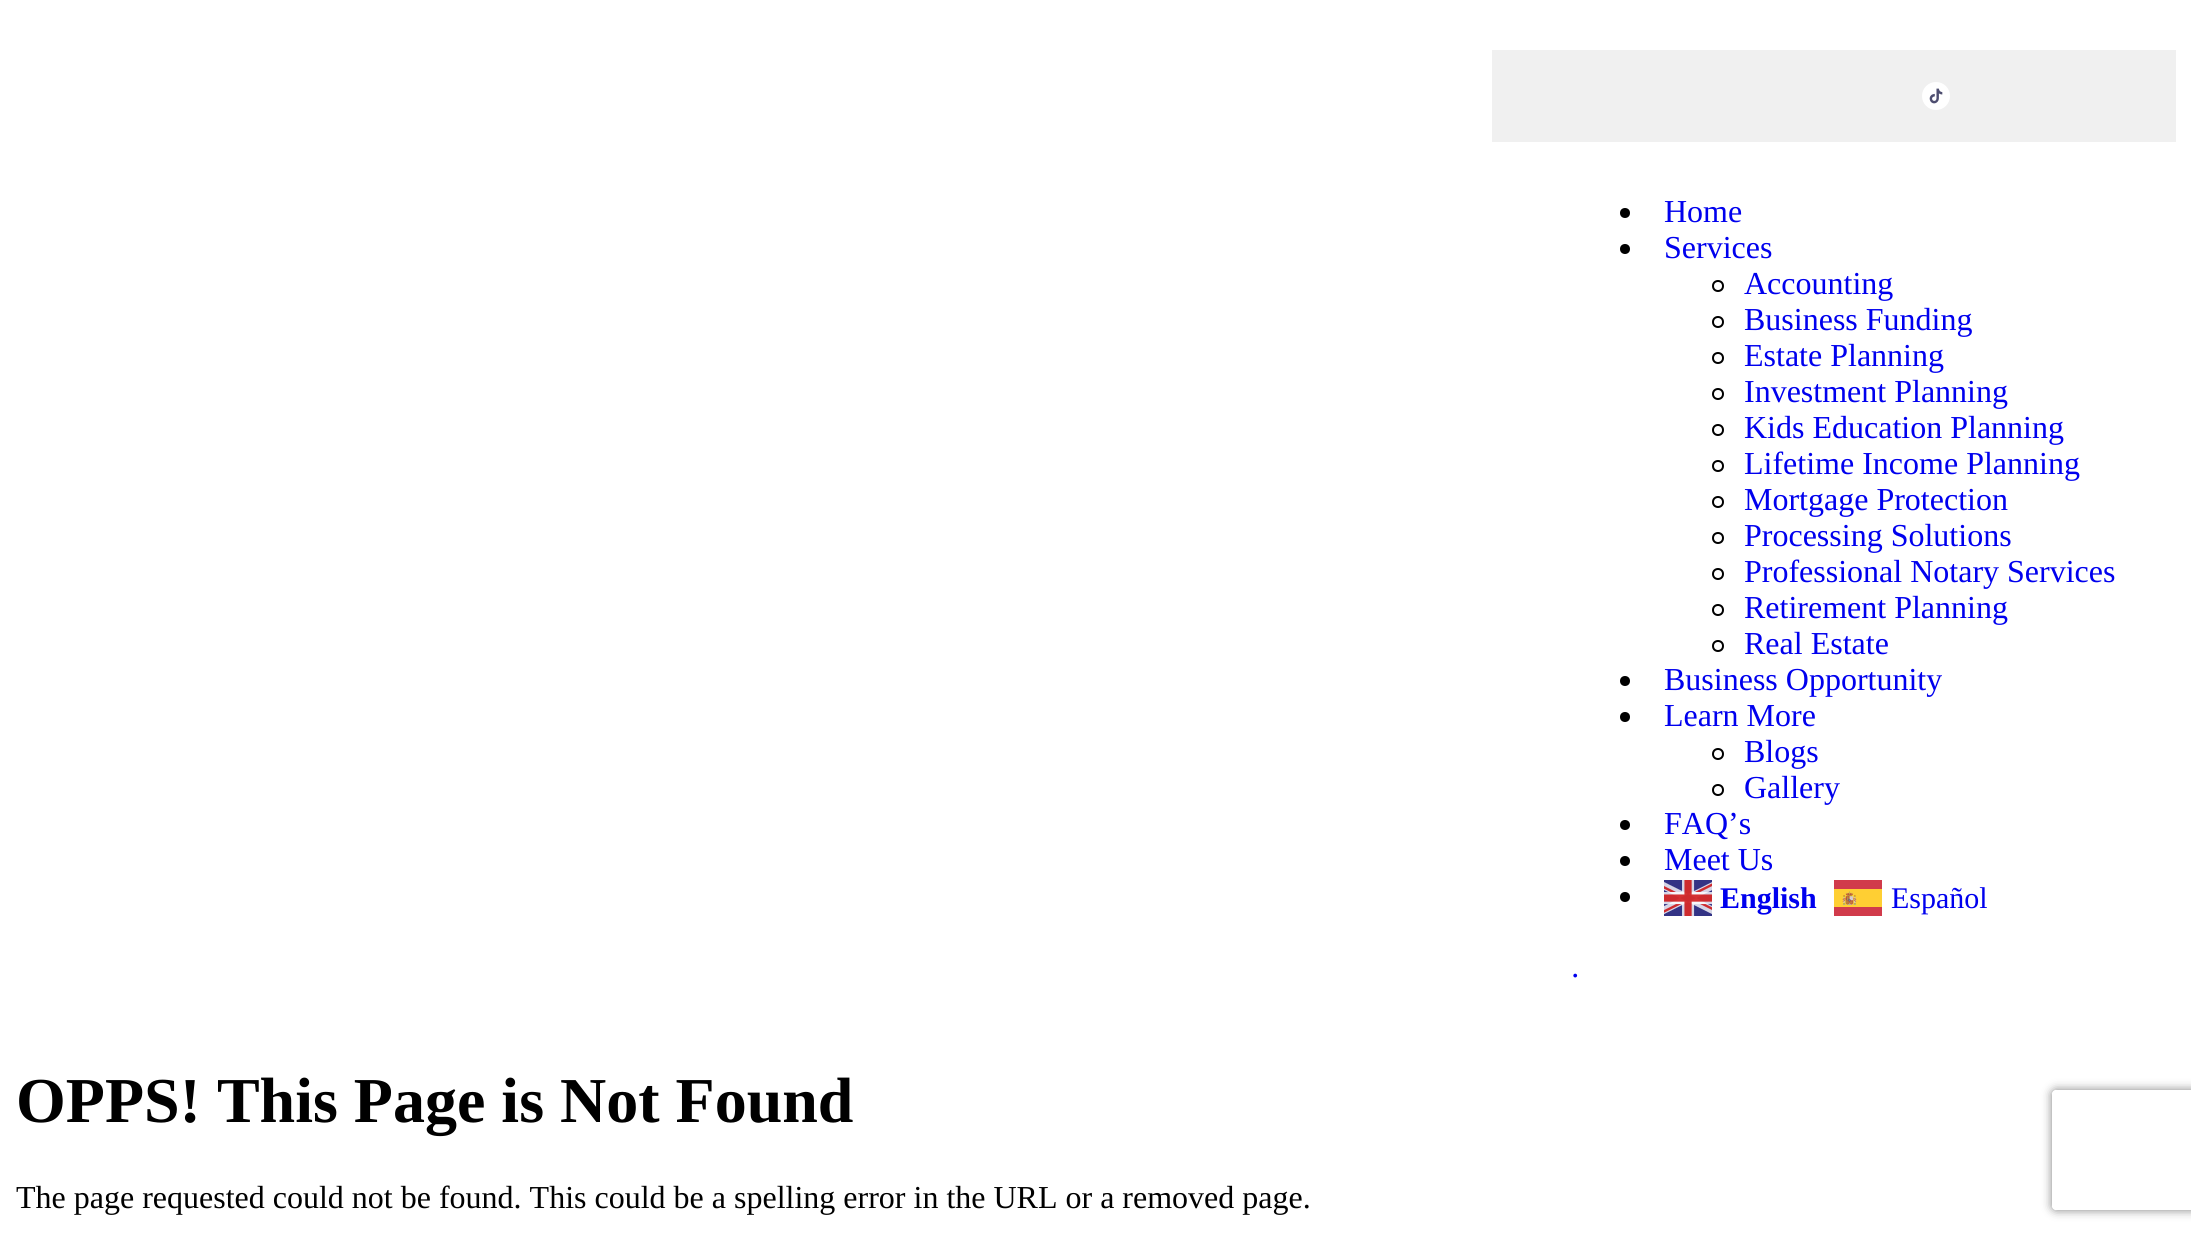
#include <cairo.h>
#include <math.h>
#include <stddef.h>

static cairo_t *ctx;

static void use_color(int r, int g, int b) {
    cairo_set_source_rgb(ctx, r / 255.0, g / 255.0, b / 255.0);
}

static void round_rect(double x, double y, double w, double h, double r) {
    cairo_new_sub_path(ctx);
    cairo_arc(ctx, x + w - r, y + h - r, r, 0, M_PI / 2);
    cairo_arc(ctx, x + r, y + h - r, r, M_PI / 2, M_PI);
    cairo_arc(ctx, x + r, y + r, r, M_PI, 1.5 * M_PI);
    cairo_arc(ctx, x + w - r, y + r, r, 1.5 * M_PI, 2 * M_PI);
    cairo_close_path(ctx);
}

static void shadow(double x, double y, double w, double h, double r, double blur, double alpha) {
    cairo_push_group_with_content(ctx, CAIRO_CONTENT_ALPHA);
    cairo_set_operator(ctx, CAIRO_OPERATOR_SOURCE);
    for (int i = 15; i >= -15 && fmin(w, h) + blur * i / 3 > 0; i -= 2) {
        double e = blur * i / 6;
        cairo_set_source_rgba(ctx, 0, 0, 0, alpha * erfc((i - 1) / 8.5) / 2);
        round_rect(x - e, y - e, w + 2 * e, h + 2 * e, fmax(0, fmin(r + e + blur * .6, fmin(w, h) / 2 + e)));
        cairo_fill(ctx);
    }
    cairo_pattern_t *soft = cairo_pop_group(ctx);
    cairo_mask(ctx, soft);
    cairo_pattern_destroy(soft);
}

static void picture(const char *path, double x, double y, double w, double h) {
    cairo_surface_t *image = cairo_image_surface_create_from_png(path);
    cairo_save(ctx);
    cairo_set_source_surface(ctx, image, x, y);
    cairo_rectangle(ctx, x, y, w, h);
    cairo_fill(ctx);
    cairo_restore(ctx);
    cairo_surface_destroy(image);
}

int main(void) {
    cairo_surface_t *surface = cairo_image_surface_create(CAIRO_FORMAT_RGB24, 2191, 1237);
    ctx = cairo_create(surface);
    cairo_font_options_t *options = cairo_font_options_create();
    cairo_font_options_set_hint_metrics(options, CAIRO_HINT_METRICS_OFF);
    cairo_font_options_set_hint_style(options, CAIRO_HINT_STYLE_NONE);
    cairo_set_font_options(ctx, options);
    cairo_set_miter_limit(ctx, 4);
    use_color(255, 255, 255);
    cairo_paint(ctx);
    use_color(240, 240, 240);
    cairo_rectangle(ctx, 1492, 50, 684, 92);
    cairo_fill(ctx);
    picture("img1.png", 1922, 82, 28, 28);
    use_color(0, 0, 0);
    cairo_arc(ctx, 1625, 213, 5, 0, 2 * M_PI);
    cairo_fill(ctx);
    cairo_select_font_face(ctx, "Liberation Serif", CAIRO_FONT_SLANT_NORMAL, CAIRO_FONT_WEIGHT_NORMAL);
    cairo_set_font_size(ctx, 32);
    use_color(0, 0, 238);
    cairo_move_to(ctx, 1664, 222);
    cairo_show_text(ctx, "Home");
    use_color(0, 0, 0);
    cairo_new_path(ctx);
    cairo_arc(ctx, 1625, 249, 5, 0, 2 * M_PI);
    cairo_fill(ctx);
    use_color(0, 0, 238);
    cairo_move_to(ctx, 1664, 258);
    cairo_show_text(ctx, "Services");
    cairo_new_path(ctx);
    cairo_arc(ctx, 1718, 286, 5, 0, 2 * M_PI);
    use_color(0, 0, 0);
    cairo_stroke(ctx);
    use_color(0, 0, 238);
    cairo_move_to(ctx, 1744, 294);
    cairo_show_text(ctx, "Accounting");
    cairo_new_path(ctx);
    cairo_arc(ctx, 1718, 322, 5, 0, 2 * M_PI);
    use_color(0, 0, 0);
    cairo_stroke(ctx);
    use_color(0, 0, 238);
    cairo_move_to(ctx, 1744, 330);
    cairo_show_text(ctx, "Business Funding");
    cairo_new_path(ctx);
    cairo_arc(ctx, 1718, 358, 5, 0, 2 * M_PI);
    use_color(0, 0, 0);
    cairo_stroke(ctx);
    use_color(0, 0, 238);
    cairo_move_to(ctx, 1744, 366);
    cairo_show_text(ctx, "Estate Planning");
    cairo_new_path(ctx);
    cairo_arc(ctx, 1718, 394, 5, 0, 2 * M_PI);
    use_color(0, 0, 0);
    cairo_stroke(ctx);
    use_color(0, 0, 238);
    cairo_move_to(ctx, 1744, 402);
    cairo_show_text(ctx, "Investment Planning");
    cairo_new_path(ctx);
    cairo_arc(ctx, 1718, 430, 5, 0, 2 * M_PI);
    use_color(0, 0, 0);
    cairo_stroke(ctx);
    use_color(0, 0, 238);
    cairo_move_to(ctx, 1744, 438);
    cairo_show_text(ctx, "Kids Education Planning");
    cairo_new_path(ctx);
    cairo_arc(ctx, 1718, 466, 5, 0, 2 * M_PI);
    use_color(0, 0, 0);
    cairo_stroke(ctx);
    use_color(0, 0, 238);
    cairo_move_to(ctx, 1744, 474);
    cairo_show_text(ctx, "Lifetime Income Planning");
    cairo_new_path(ctx);
    cairo_arc(ctx, 1718, 502, 5, 0, 2 * M_PI);
    use_color(0, 0, 0);
    cairo_stroke(ctx);
    use_color(0, 0, 238);
    cairo_move_to(ctx, 1744, 510);
    cairo_show_text(ctx, "Mortgage Protection");
    cairo_new_path(ctx);
    cairo_arc(ctx, 1718, 538, 5, 0, 2 * M_PI);
    use_color(0, 0, 0);
    cairo_stroke(ctx);
    use_color(0, 0, 238);
    cairo_move_to(ctx, 1744, 546);
    cairo_show_text(ctx, "Processing Solutions");
    cairo_new_path(ctx);
    cairo_arc(ctx, 1718, 574, 5, 0, 2 * M_PI);
    use_color(0, 0, 0);
    cairo_stroke(ctx);
    use_color(0, 0, 238);
    cairo_move_to(ctx, 1744, 582);
    cairo_show_text(ctx, "Professional Notary Services");
    cairo_new_path(ctx);
    cairo_arc(ctx, 1718, 610, 5, 0, 2 * M_PI);
    use_color(0, 0, 0);
    cairo_stroke(ctx);
    use_color(0, 0, 238);
    cairo_move_to(ctx, 1744, 618);
    cairo_show_text(ctx, "Retirement Planning");
    cairo_new_path(ctx);
    cairo_arc(ctx, 1718, 646, 5, 0, 2 * M_PI);
    use_color(0, 0, 0);
    cairo_stroke(ctx);
    use_color(0, 0, 238);
    cairo_move_to(ctx, 1744, 654);
    cairo_show_text(ctx, "Real Estate");
    use_color(0, 0, 0);
    cairo_new_path(ctx);
    cairo_arc(ctx, 1625, 681, 5, 0, 2 * M_PI);
    cairo_fill(ctx);
    use_color(0, 0, 238);
    cairo_move_to(ctx, 1664, 690);
    cairo_show_text(ctx, "Business Opportunity");
    use_color(0, 0, 0);
    cairo_new_path(ctx);
    cairo_arc(ctx, 1625, 717, 5, 0, 2 * M_PI);
    cairo_fill(ctx);
    use_color(0, 0, 238);
    cairo_move_to(ctx, 1664, 726);
    cairo_show_text(ctx, "Learn More");
    cairo_new_path(ctx);
    cairo_arc(ctx, 1718, 754, 5, 0, 2 * M_PI);
    use_color(0, 0, 0);
    cairo_stroke(ctx);
    use_color(0, 0, 238);
    cairo_move_to(ctx, 1744, 762);
    cairo_show_text(ctx, "Blogs");
    cairo_new_path(ctx);
    cairo_arc(ctx, 1718, 790, 5, 0, 2 * M_PI);
    use_color(0, 0, 0);
    cairo_stroke(ctx);
    use_color(0, 0, 238);
    cairo_move_to(ctx, 1744, 798);
    cairo_show_text(ctx, "Gallery");
    use_color(0, 0, 0);
    cairo_new_path(ctx);
    cairo_arc(ctx, 1625, 825, 5, 0, 2 * M_PI);
    cairo_fill(ctx);
    use_color(0, 0, 238);
    cairo_move_to(ctx, 1664, 834);
    cairo_show_text(ctx, "FAQ’s");
    use_color(0, 0, 0);
    cairo_new_path(ctx);
    cairo_arc(ctx, 1625, 861, 5, 0, 2 * M_PI);
    cairo_fill(ctx);
    use_color(0, 0, 238);
    cairo_move_to(ctx, 1664, 870);
    cairo_show_text(ctx, "Meet Us");
    use_color(0, 0, 0);
    cairo_new_path(ctx);
    cairo_arc(ctx, 1625, 897, 5, 0, 2 * M_PI);
    cairo_fill(ctx);
    picture("img2.png", 1664, 880, 48, 36);
    cairo_select_font_face(ctx, "Liberation Serif", CAIRO_FONT_SLANT_NORMAL, CAIRO_FONT_WEIGHT_BOLD);
    cairo_set_font_size(ctx, 30);
    use_color(0, 0, 238);
    cairo_move_to(ctx, 1720, 908);
    cairo_show_text(ctx, "English");
    picture("img3.png", 1834, 880, 48, 36);
    cairo_select_font_face(ctx, "Liberation Serif", CAIRO_FONT_SLANT_NORMAL, CAIRO_FONT_WEIGHT_NORMAL);
    cairo_move_to(ctx, 1891, 908);
    cairo_show_text(ctx, "Español");
    cairo_select_font_face(ctx, "Liberation Serif", CAIRO_FONT_SLANT_ITALIC, CAIRO_FONT_WEIGHT_NORMAL);
    cairo_set_font_size(ctx, 32);
    cairo_move_to(ctx, 1572, 977);
    cairo_show_text(ctx, ".");
    cairo_select_font_face(ctx, "Liberation Serif", CAIRO_FONT_SLANT_NORMAL, CAIRO_FONT_WEIGHT_BOLD);
    cairo_set_font_size(ctx, 64);
    use_color(0, 0, 0);
    cairo_move_to(ctx, 16, 1122);
    cairo_show_text(ctx, "OPPS! This Page is Not Found");
    cairo_select_font_face(ctx, "Liberation Serif", CAIRO_FONT_SLANT_NORMAL, CAIRO_FONT_WEIGHT_NORMAL);
    cairo_set_font_size(ctx, 32);
    cairo_move_to(ctx, 16, 1208);
    cairo_show_text(ctx, "The page requested could not be found. This could be a spelling error in the URL or a removed page.");
    cairo_save(ctx);
    cairo_set_fill_rule(ctx, CAIRO_FILL_RULE_EVEN_ODD);
    cairo_new_path(ctx);
    cairo_move_to(ctx, 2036, 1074);
    cairo_line_to(ctx, 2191, 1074);
    cairo_line_to(ctx, 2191, 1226);
    cairo_line_to(ctx, 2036, 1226);
    cairo_close_path(ctx);
    cairo_move_to(ctx, 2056, 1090);
    cairo_line_to(ctx, 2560, 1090);
    cairo_curve_to(ctx, 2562, 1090, 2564, 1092, 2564, 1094);
    cairo_line_to(ctx, 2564, 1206);
    cairo_curve_to(ctx, 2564, 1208, 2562, 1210, 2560, 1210);
    cairo_line_to(ctx, 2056, 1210);
    cairo_curve_to(ctx, 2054, 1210, 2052, 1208, 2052, 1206);
    cairo_line_to(ctx, 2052, 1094);
    cairo_curve_to(ctx, 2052, 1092, 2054, 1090, 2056, 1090);
    cairo_close_path(ctx);
    cairo_clip(ctx);
    use_color(128, 128, 128);
    shadow(2052, 1090, 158, 120, 4, 5, 1);
    cairo_restore(ctx);
    cairo_surface_write_to_png(surface, "result.png");
    cairo_font_options_destroy(options);
    cairo_destroy(ctx);
    cairo_surface_destroy(surface);
    return 0;
}
